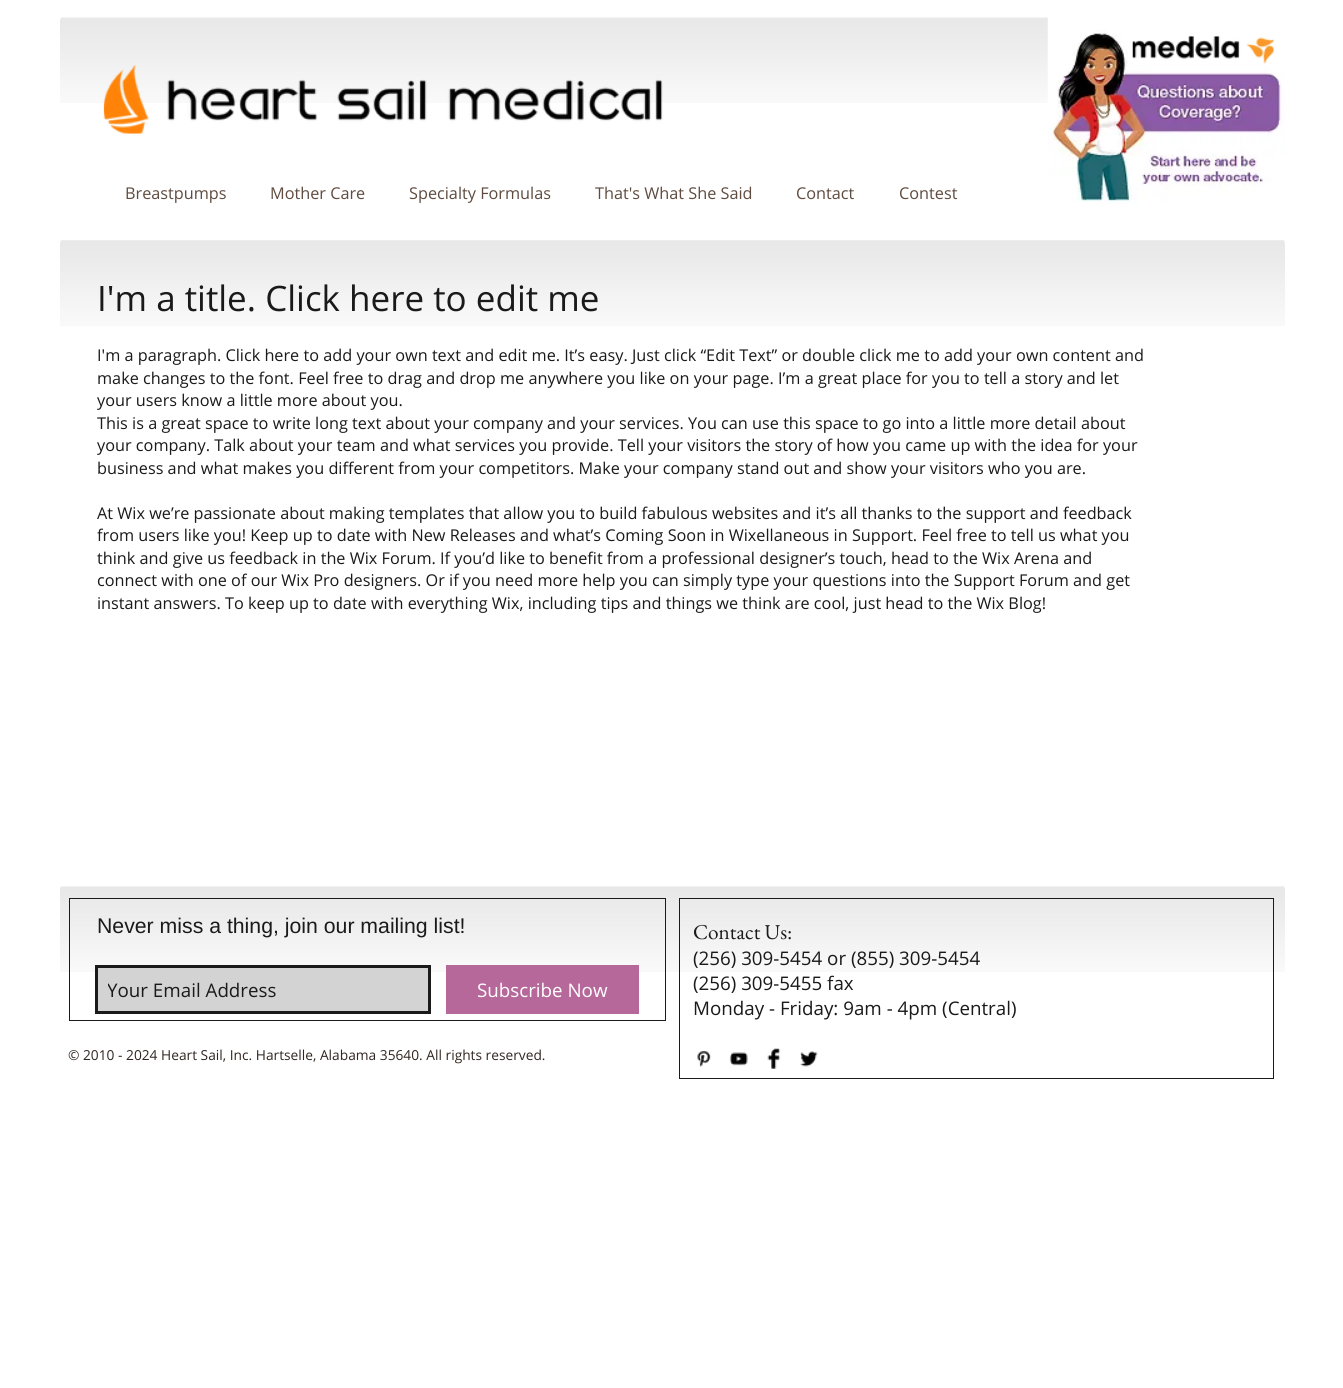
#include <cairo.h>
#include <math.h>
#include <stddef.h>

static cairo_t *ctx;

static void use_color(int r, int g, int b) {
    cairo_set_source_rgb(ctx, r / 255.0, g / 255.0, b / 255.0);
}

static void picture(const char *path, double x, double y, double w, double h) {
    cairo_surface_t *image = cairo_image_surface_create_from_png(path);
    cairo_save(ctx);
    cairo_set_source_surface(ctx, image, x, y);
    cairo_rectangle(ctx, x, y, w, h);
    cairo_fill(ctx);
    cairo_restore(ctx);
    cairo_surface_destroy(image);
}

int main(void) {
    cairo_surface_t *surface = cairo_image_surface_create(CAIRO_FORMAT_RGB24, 1343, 1388);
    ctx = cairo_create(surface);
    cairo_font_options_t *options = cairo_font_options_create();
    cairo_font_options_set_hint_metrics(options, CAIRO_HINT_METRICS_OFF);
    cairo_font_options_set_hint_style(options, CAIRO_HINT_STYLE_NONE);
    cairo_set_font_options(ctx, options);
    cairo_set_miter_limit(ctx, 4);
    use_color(255, 255, 255);
    cairo_paint(ctx);
    picture("img1.png", 60, 17, 988, 86);
    picture("img2.png", 1047, 17, 238, 188);
    picture("img3.png", 1132, 36, 142, 28);
    picture("img4.png", 103, 65, 560, 69);
    cairo_select_font_face(ctx, "Open Sans", CAIRO_FONT_SLANT_NORMAL, CAIRO_FONT_WEIGHT_NORMAL);
    cairo_set_font_size(ctx, 16.25);
    use_color(95, 75, 63);
    cairo_move_to(ctx, 125, 199);
    cairo_show_text(ctx, "Breastpumps");
    cairo_move_to(ctx, 270, 199);
    cairo_show_text(ctx, "Mother Care");
    cairo_move_to(ctx, 409, 199);
    cairo_show_text(ctx, "Specialty Formulas");
    cairo_move_to(ctx, 595, 199);
    cairo_show_text(ctx, "That's What She Said");
    cairo_move_to(ctx, 796, 199);
    cairo_show_text(ctx, "Contact");
    cairo_move_to(ctx, 899, 199);
    cairo_show_text(ctx, "Contest");
    picture("img5.png", 60, 240, 1225, 86);
    cairo_set_font_size(ctx, 35);
    use_color(26, 26, 26);
    cairo_move_to(ctx, 97, 311);
    cairo_show_text(ctx, "I'm a title. Click here to edit me");
    cairo_set_font_size(ctx, 16.25);
    cairo_move_to(ctx, 97, 361);
    cairo_show_text(ctx, "I'm a paragraph. Click here to add your own text and edit me. It’s easy. Just click “Edit Text” or double click me to add your own content and");
    cairo_move_to(ctx, 97, 384);
    cairo_show_text(ctx, "make changes to the font. Feel free to drag and drop me anywhere you like on your page. I’m a great place for you to tell a story and let");
    cairo_move_to(ctx, 97, 406);
    cairo_show_text(ctx, "your users know a little more about you.");
    cairo_move_to(ctx, 97, 429);
    cairo_show_text(ctx, "This is a great space to write long text about your company and your services. You can use this space to go into a little more detail about");
    cairo_move_to(ctx, 97, 451);
    cairo_show_text(ctx, "your company. Talk about your team and what services you provide. Tell your visitors the story of how you came up with the idea for your");
    cairo_move_to(ctx, 97, 474);
    cairo_show_text(ctx, "business and what makes you different from your competitors. Make your company stand out and show your visitors who you are.");
    cairo_move_to(ctx, 97, 519);
    cairo_show_text(ctx, "At Wix we’re passionate about making templates that allow you to build fabulous websites and it’s all thanks to the support and feedback");
    cairo_move_to(ctx, 97, 541);
    cairo_show_text(ctx, "from users like you! Keep up to date with New Releases and what’s Coming Soon in Wixellaneous in Support. Feel free to tell us what you");
    cairo_move_to(ctx, 97, 564);
    cairo_show_text(ctx, "think and give us feedback in the Wix Forum. If you’d like to benefit from a professional designer’s touch, head to the Wix Arena and");
    cairo_move_to(ctx, 97, 586);
    cairo_show_text(ctx, "connect with one of our Wix Pro designers. Or if you need more help you can simply type your questions into the Support Forum and get");
    cairo_move_to(ctx, 97, 609);
    cairo_show_text(ctx, "instant answers. To keep up to date with everything Wix, including tips and things we think are cool, just head to the Wix Blog!");
    picture("img6.png", 60, 886, 1225, 86);
    cairo_rectangle(ctx, 69.5, 898.5, 596, 122);
    cairo_set_line_width(ctx, 1);
    cairo_stroke(ctx);
    cairo_select_font_face(ctx, "Liberation Sans", CAIRO_FONT_SLANT_NORMAL, CAIRO_FONT_WEIGHT_NORMAL);
    cairo_set_font_size(ctx, 21.25);
    cairo_move_to(ctx, 97, 933);
    cairo_show_text(ctx, "Never miss a thing, join our mailing list!");
    use_color(212, 211, 211);
    cairo_rectangle(ctx, 96.5, 966.5, 333, 46);
    cairo_fill_preserve(ctx);
    use_color(26, 26, 26);
    cairo_set_line_width(ctx, 3);
    cairo_stroke(ctx);
    cairo_save(ctx);
    cairo_rectangle(ctx, 108, 978, 317, 25);
    cairo_clip(ctx);
    cairo_select_font_face(ctx, "Open Sans", CAIRO_FONT_SLANT_NORMAL, CAIRO_FONT_WEIGHT_NORMAL);
    cairo_set_font_size(ctx, 18.75);
    cairo_move_to(ctx, 107, 997);
    cairo_show_text(ctx, "Your Email Address");
    cairo_restore(ctx);
    use_color(182, 104, 154);
    cairo_rectangle(ctx, 446, 965, 193, 49);
    cairo_fill(ctx);
    cairo_select_font_face(ctx, "Open Sans", CAIRO_FONT_SLANT_NORMAL, CAIRO_FONT_WEIGHT_NORMAL);
    cairo_set_font_size(ctx, 18.75);
    use_color(255, 255, 255);
    cairo_move_to(ctx, 477, 997);
    cairo_show_text(ctx, "Subscribe Now");
    cairo_rectangle(ctx, 679.5, 898.5, 594, 180);
    use_color(26, 26, 26);
    cairo_set_line_width(ctx, 1);
    cairo_stroke(ctx);
    cairo_select_font_face(ctx, "EB Garamond", CAIRO_FONT_SLANT_NORMAL, CAIRO_FONT_WEIGHT_NORMAL);
    cairo_set_font_size(ctx, 21.25);
    cairo_move_to(ctx, 693, 939);
    cairo_show_text(ctx, "Contact Us:");
    cairo_select_font_face(ctx, "Open Sans", CAIRO_FONT_SLANT_NORMAL, CAIRO_FONT_WEIGHT_NORMAL);
    cairo_set_font_size(ctx, 18.75);
    cairo_move_to(ctx, 693, 965);
    cairo_show_text(ctx, "(256) 309-5454 or (855) 309-5454");
    cairo_move_to(ctx, 693, 990);
    cairo_show_text(ctx, "(256) 309-5455 fax");
    cairo_move_to(ctx, 693, 1015);
    cairo_show_text(ctx, "Monday - Friday: 9am - 4pm (Central)");
    picture("img7.png", 697, 1050, 14, 17);
    picture("img8.png", 729, 1052, 19, 14);
    picture("img9.png", 767, 1048, 14, 21);
    picture("img10.png", 800, 1051, 18, 16);
    cairo_set_font_size(ctx, 13.75);
    use_color(48, 37, 31);
    cairo_move_to(ctx, 68, 1060);
    cairo_show_text(ctx, "© 2010 - 2024 Heart Sail, Inc. Hartselle, Alabama 35640. All rights reserved.");
    cairo_surface_write_to_png(surface, "result.png");
    cairo_font_options_destroy(options);
    cairo_destroy(ctx);
    cairo_surface_destroy(surface);
    return 0;
}
